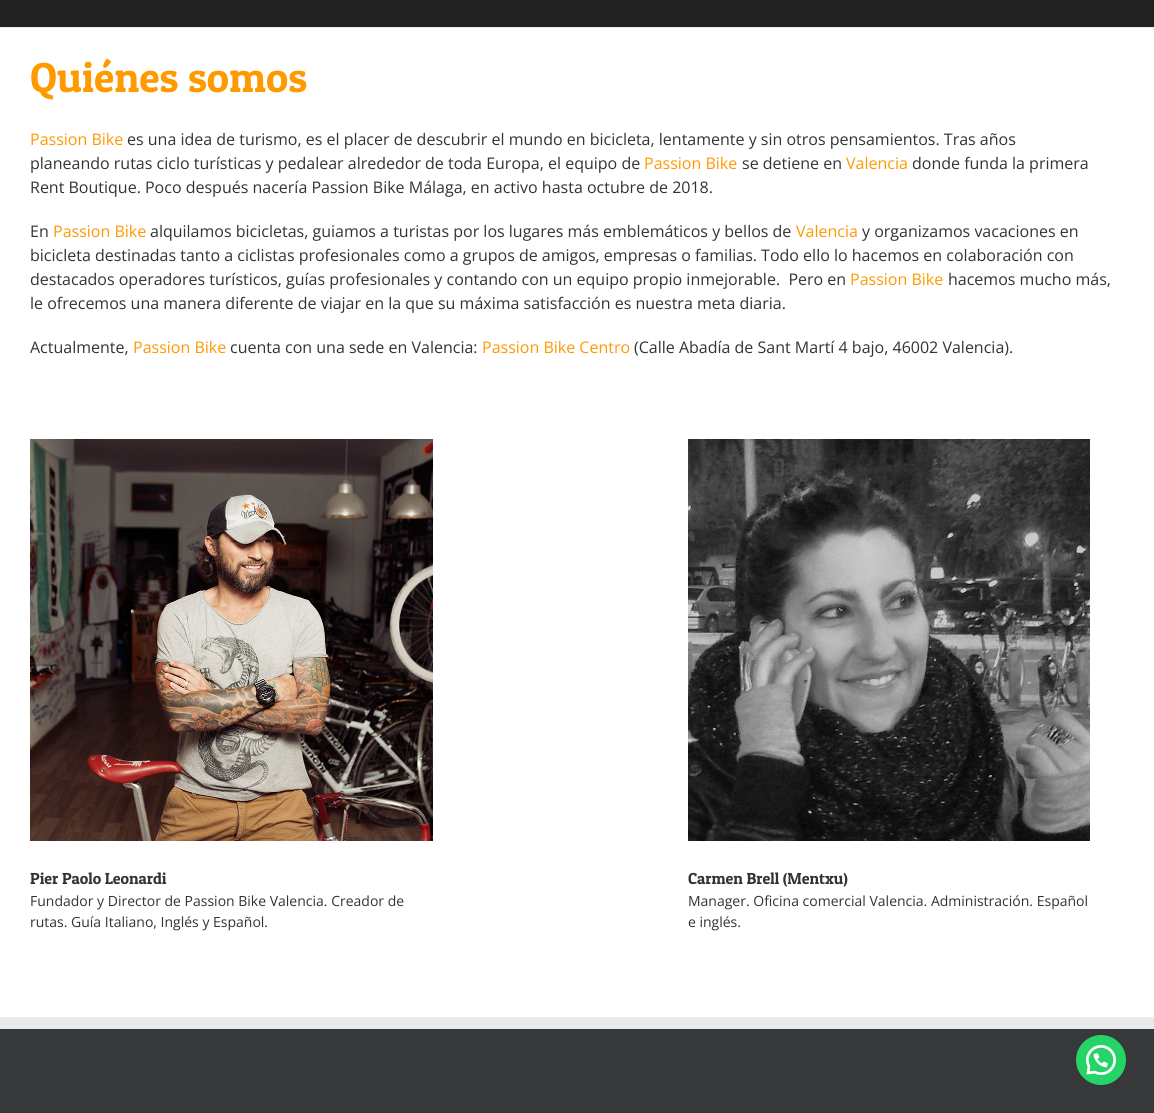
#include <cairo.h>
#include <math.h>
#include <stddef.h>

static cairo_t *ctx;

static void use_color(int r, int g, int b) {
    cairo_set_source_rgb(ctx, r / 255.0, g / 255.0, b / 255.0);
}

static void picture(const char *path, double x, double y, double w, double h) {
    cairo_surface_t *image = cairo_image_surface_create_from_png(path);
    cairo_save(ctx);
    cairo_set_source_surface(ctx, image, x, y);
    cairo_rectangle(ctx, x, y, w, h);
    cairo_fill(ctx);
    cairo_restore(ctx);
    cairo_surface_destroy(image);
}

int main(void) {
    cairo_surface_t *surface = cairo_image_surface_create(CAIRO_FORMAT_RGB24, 1154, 1113);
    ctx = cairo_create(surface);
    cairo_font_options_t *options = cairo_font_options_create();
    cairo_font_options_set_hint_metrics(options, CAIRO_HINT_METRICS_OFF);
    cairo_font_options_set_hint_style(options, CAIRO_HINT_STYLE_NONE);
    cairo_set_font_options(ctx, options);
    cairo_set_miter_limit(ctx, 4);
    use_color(255, 255, 255);
    cairo_paint(ctx);
    use_color(34, 34, 34);
    cairo_rectangle(ctx, 0, 0, 1154, 27);
    cairo_fill(ctx);
    use_color(237, 237, 237);
    cairo_rectangle(ctx, 0, 27, 1154, 1);
    cairo_fill(ctx);
    cairo_select_font_face(ctx, "Patua One", CAIRO_FONT_SLANT_NORMAL, CAIRO_FONT_WEIGHT_NORMAL);
    cairo_set_font_size(ctx, 42);
    use_color(255, 153, 0);
    cairo_move_to(ctx, 30, 92);
    cairo_show_text(ctx, "Quiénes somos");
    cairo_select_font_face(ctx, "Open Sans", CAIRO_FONT_SLANT_NORMAL, CAIRO_FONT_WEIGHT_NORMAL);
    cairo_set_font_size(ctx, 16);
    cairo_move_to(ctx, 30, 145);
    cairo_show_text(ctx, "Passion Bike");
    use_color(51, 51, 51);
    cairo_move_to(ctx, 127, 145);
    cairo_show_text(ctx, "es una idea de turismo, es el placer de descubrir el mundo en bicicleta, lentamente y sin otros pensamientos. Tras años");
    cairo_move_to(ctx, 30, 169);
    cairo_show_text(ctx, "planeando rutas ciclo turísticas y pedalear alrededor de toda Europa, el equipo de");
    use_color(255, 153, 0);
    cairo_move_to(ctx, 644, 169);
    cairo_show_text(ctx, "Passion Bike");
    use_color(51, 51, 51);
    cairo_move_to(ctx, 742, 169);
    cairo_show_text(ctx, "se detiene en");
    use_color(255, 153, 0);
    cairo_move_to(ctx, 846, 169);
    cairo_show_text(ctx, "Valencia");
    use_color(51, 51, 51);
    cairo_move_to(ctx, 912, 169);
    cairo_show_text(ctx, "donde funda la primera");
    cairo_move_to(ctx, 30, 193);
    cairo_show_text(ctx, "Rent Boutique. Poco después nacería Passion Bike Málaga, en activo hasta octubre de 2018.");
    cairo_move_to(ctx, 30, 237);
    cairo_show_text(ctx, "En");
    use_color(255, 153, 0);
    cairo_move_to(ctx, 53, 237);
    cairo_show_text(ctx, "Passion Bike");
    use_color(51, 51, 51);
    cairo_move_to(ctx, 150, 237);
    cairo_show_text(ctx, "alquilamos bicicletas, guiamos a turistas por los lugares más emblemáticos y bellos de");
    use_color(255, 153, 0);
    cairo_move_to(ctx, 796, 237);
    cairo_show_text(ctx, "Valencia");
    use_color(51, 51, 51);
    cairo_move_to(ctx, 862, 237);
    cairo_show_text(ctx, "y organizamos vacaciones en");
    cairo_move_to(ctx, 30, 261);
    cairo_show_text(ctx, "bicicleta destinadas tanto a ciclistas profesionales como a grupos de amigos, empresas o familias. Todo ello lo hacemos en colaboración con");
    cairo_move_to(ctx, 30, 285);
    cairo_show_text(ctx, "destacados operadores turísticos, guías profesionales y contando con un equipo propio inmejorable.  Pero en");
    use_color(255, 153, 0);
    cairo_move_to(ctx, 850, 285);
    cairo_show_text(ctx, "Passion Bike");
    use_color(51, 51, 51);
    cairo_move_to(ctx, 948, 285);
    cairo_show_text(ctx, "hacemos mucho más,");
    cairo_move_to(ctx, 30, 309);
    cairo_show_text(ctx, "le ofrecemos una manera diferente de viajar en la que su máxima satisfacción es nuestra meta diaria.");
    cairo_move_to(ctx, 30, 353);
    cairo_show_text(ctx, "Actualmente,");
    use_color(255, 153, 0);
    cairo_move_to(ctx, 133, 353);
    cairo_show_text(ctx, "Passion Bike");
    use_color(51, 51, 51);
    cairo_move_to(ctx, 230, 353);
    cairo_show_text(ctx, "cuenta con una sede en Valencia:");
    use_color(255, 153, 0);
    cairo_move_to(ctx, 482, 353);
    cairo_show_text(ctx, "Passion Bike Centro");
    use_color(51, 51, 51);
    cairo_move_to(ctx, 634, 353);
    cairo_show_text(ctx, "(Calle Abadía de Sant Martí 4 bajo, 46002 Valencia).");
    picture("img1.png", 30, 439, 403, 402);
    cairo_select_font_face(ctx, "Patua One", CAIRO_FONT_SLANT_NORMAL, CAIRO_FONT_WEIGHT_NORMAL);
    cairo_move_to(ctx, 30, 884);
    cairo_show_text(ctx, "Pier Paolo Leonardi");
    cairo_select_font_face(ctx, "Open Sans", CAIRO_FONT_SLANT_NORMAL, CAIRO_FONT_WEIGHT_NORMAL);
    cairo_set_font_size(ctx, 14);
    cairo_move_to(ctx, 30, 906);
    cairo_show_text(ctx, "Fundador y Director de Passion Bike Valencia. Creador de");
    cairo_move_to(ctx, 30, 927);
    cairo_show_text(ctx, "rutas. Guía Italiano, Inglés y Español.");
    picture("img2.png", 688, 439, 402, 402);
    cairo_select_font_face(ctx, "Patua One", CAIRO_FONT_SLANT_NORMAL, CAIRO_FONT_WEIGHT_NORMAL);
    cairo_set_font_size(ctx, 16);
    cairo_move_to(ctx, 688, 884);
    cairo_show_text(ctx, "Carmen Brell (Mentxu)");
    cairo_select_font_face(ctx, "Open Sans", CAIRO_FONT_SLANT_NORMAL, CAIRO_FONT_WEIGHT_NORMAL);
    cairo_set_font_size(ctx, 14);
    cairo_move_to(ctx, 688, 906);
    cairo_show_text(ctx, "Manager. Oficina comercial Valencia. Administración. Español");
    cairo_move_to(ctx, 688, 927);
    cairo_show_text(ctx, "e inglés.");
    use_color(54, 56, 57);
    cairo_rectangle(ctx, 0, 1029, 1154, 84);
    cairo_fill(ctx);
    use_color(233, 234, 238);
    cairo_rectangle(ctx, 0, 1017, 1154, 12);
    cairo_fill(ctx);
    use_color(37, 211, 102);
    cairo_arc(ctx, 1101, 1060, 25, 0, 2 * M_PI);
    cairo_fill(ctx);
    picture("img3.png", 1086, 1045, 30, 30);
    cairo_surface_write_to_png(surface, "result.png");
    cairo_font_options_destroy(options);
    cairo_destroy(ctx);
    cairo_surface_destroy(surface);
    return 0;
}
